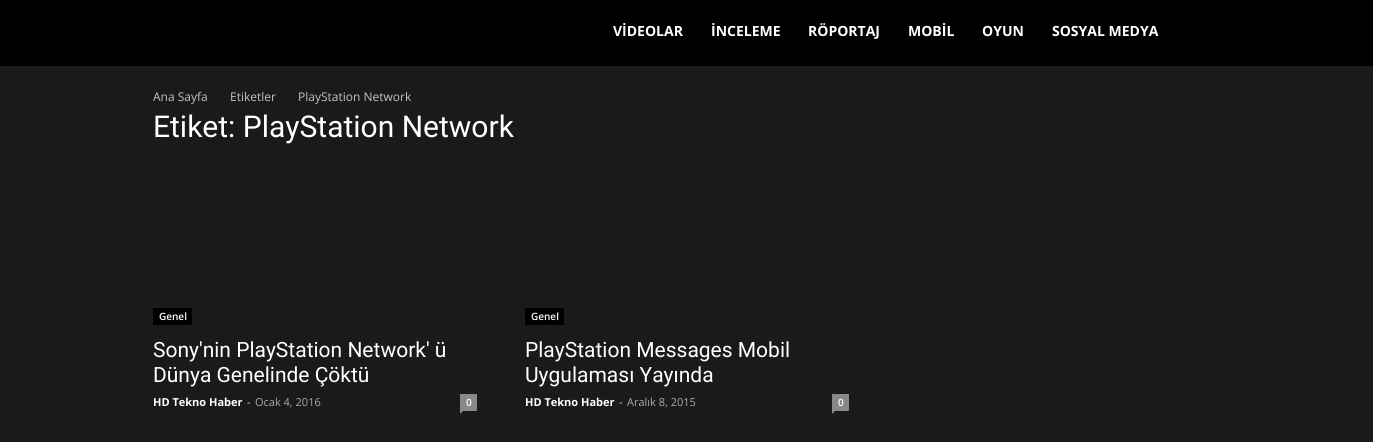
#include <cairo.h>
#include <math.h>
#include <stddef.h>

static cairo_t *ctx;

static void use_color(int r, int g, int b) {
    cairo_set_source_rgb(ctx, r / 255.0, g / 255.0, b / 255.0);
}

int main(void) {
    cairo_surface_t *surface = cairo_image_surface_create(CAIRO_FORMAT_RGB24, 1373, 442);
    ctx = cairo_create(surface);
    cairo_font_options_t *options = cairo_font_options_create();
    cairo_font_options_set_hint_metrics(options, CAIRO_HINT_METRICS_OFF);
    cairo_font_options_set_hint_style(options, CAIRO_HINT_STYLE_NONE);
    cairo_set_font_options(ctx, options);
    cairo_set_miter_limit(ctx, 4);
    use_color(26, 26, 26);
    cairo_paint(ctx);
    use_color(0, 0, 0);
    cairo_rectangle(ctx, 0, 0, 1373, 66);
    cairo_fill(ctx);
    cairo_select_font_face(ctx, "Open Sans", CAIRO_FONT_SLANT_NORMAL, CAIRO_FONT_WEIGHT_BOLD);
    cairo_set_font_size(ctx, 14);
    use_color(255, 255, 255);
    cairo_move_to(ctx, 613, 36);
    cairo_show_text(ctx, "VİDEOLAR");
    cairo_move_to(ctx, 711, 36);
    cairo_show_text(ctx, "İNCELEME");
    cairo_move_to(ctx, 808, 36);
    cairo_show_text(ctx, "RÖPORTAJ");
    cairo_move_to(ctx, 908, 36);
    cairo_show_text(ctx, "MOBİL");
    cairo_move_to(ctx, 982, 36);
    cairo_show_text(ctx, "OYUN");
    cairo_move_to(ctx, 1052, 36);
    cairo_show_text(ctx, "SOSYAL MEDYA");
    cairo_select_font_face(ctx, "Open Sans", CAIRO_FONT_SLANT_NORMAL, CAIRO_FONT_WEIGHT_NORMAL);
    cairo_set_font_size(ctx, 12);
    use_color(195, 195, 195);
    cairo_move_to(ctx, 153, 101);
    cairo_show_text(ctx, "Ana Sayfa");
    cairo_move_to(ctx, 230, 101);
    cairo_show_text(ctx, "Etiketler");
    cairo_move_to(ctx, 298, 101);
    cairo_show_text(ctx, "PlayStation Network");
    cairo_select_font_face(ctx, "Roboto", CAIRO_FONT_SLANT_NORMAL, CAIRO_FONT_WEIGHT_NORMAL);
    cairo_set_font_size(ctx, 30);
    use_color(255, 255, 255);
    cairo_move_to(ctx, 153, 137);
    cairo_show_text(ctx, "Etiket: PlayStation Network");
    use_color(0, 0, 0);
    cairo_rectangle(ctx, 153, 308, 39, 17);
    cairo_fill(ctx);
    cairo_select_font_face(ctx, "Open Sans SemiBold", CAIRO_FONT_SLANT_NORMAL, CAIRO_FONT_WEIGHT_NORMAL);
    cairo_set_font_size(ctx, 10);
    use_color(255, 255, 255);
    cairo_move_to(ctx, 159, 320);
    cairo_show_text(ctx, "Genel");
    cairo_select_font_face(ctx, "Roboto", CAIRO_FONT_SLANT_NORMAL, CAIRO_FONT_WEIGHT_NORMAL);
    cairo_set_font_size(ctx, 21);
    cairo_move_to(ctx, 153, 357);
    cairo_show_text(ctx, "Sony'nin PlayStation Network' ü");
    cairo_move_to(ctx, 153, 382);
    cairo_show_text(ctx, "Dünya Genelinde Çöktü");
    cairo_select_font_face(ctx, "Open Sans", CAIRO_FONT_SLANT_NORMAL, CAIRO_FONT_WEIGHT_BOLD);
    cairo_set_font_size(ctx, 11);
    cairo_move_to(ctx, 153, 406);
    cairo_show_text(ctx, "HD Tekno Haber");
    cairo_select_font_face(ctx, "Open Sans", CAIRO_FONT_SLANT_NORMAL, CAIRO_FONT_WEIGHT_NORMAL);
    use_color(204, 204, 204);
    cairo_move_to(ctx, 247, 406);
    cairo_show_text(ctx, "-");
    use_color(170, 170, 170);
    cairo_move_to(ctx, 255, 406);
    cairo_show_text(ctx, "Ocak 4, 2016");
    use_color(136, 136, 136);
    cairo_rectangle(ctx, 460, 394, 17, 17);
    cairo_fill(ctx);
    cairo_select_font_face(ctx, "Open Sans SemiBold", CAIRO_FONT_SLANT_NORMAL, CAIRO_FONT_WEIGHT_NORMAL);
    cairo_set_font_size(ctx, 10);
    use_color(255, 255, 255);
    cairo_move_to(ctx, 466, 406);
    cairo_show_text(ctx, "0");
    use_color(136, 136, 136);
    cairo_new_path(ctx);
    cairo_move_to(ctx, 460, 411);
    cairo_line_to(ctx, 463, 411);
    cairo_line_to(ctx, 460, 414);
    cairo_close_path(ctx);
    cairo_fill(ctx);
    use_color(0, 0, 0);
    cairo_rectangle(ctx, 525, 308, 39, 17);
    cairo_fill(ctx);
    use_color(255, 255, 255);
    cairo_move_to(ctx, 531, 320);
    cairo_show_text(ctx, "Genel");
    cairo_select_font_face(ctx, "Roboto", CAIRO_FONT_SLANT_NORMAL, CAIRO_FONT_WEIGHT_NORMAL);
    cairo_set_font_size(ctx, 21);
    cairo_move_to(ctx, 525, 357);
    cairo_show_text(ctx, "PlayStation Messages Mobil");
    cairo_move_to(ctx, 525, 382);
    cairo_show_text(ctx, "Uygulaması Yayında");
    cairo_select_font_face(ctx, "Open Sans", CAIRO_FONT_SLANT_NORMAL, CAIRO_FONT_WEIGHT_BOLD);
    cairo_set_font_size(ctx, 11);
    cairo_move_to(ctx, 525, 406);
    cairo_show_text(ctx, "HD Tekno Haber");
    cairo_select_font_face(ctx, "Open Sans", CAIRO_FONT_SLANT_NORMAL, CAIRO_FONT_WEIGHT_NORMAL);
    use_color(204, 204, 204);
    cairo_move_to(ctx, 619, 406);
    cairo_show_text(ctx, "-");
    use_color(170, 170, 170);
    cairo_move_to(ctx, 627, 406);
    cairo_show_text(ctx, "Aralık 8, 2015");
    use_color(136, 136, 136);
    cairo_rectangle(ctx, 832, 394, 17, 17);
    cairo_fill(ctx);
    cairo_select_font_face(ctx, "Open Sans SemiBold", CAIRO_FONT_SLANT_NORMAL, CAIRO_FONT_WEIGHT_NORMAL);
    cairo_set_font_size(ctx, 10);
    use_color(255, 255, 255);
    cairo_move_to(ctx, 838, 406);
    cairo_show_text(ctx, "0");
    use_color(136, 136, 136);
    cairo_new_path(ctx);
    cairo_move_to(ctx, 832, 411);
    cairo_line_to(ctx, 835, 411);
    cairo_line_to(ctx, 832, 414);
    cairo_close_path(ctx);
    cairo_fill(ctx);
    cairo_surface_write_to_png(surface, "result.png");
    cairo_font_options_destroy(options);
    cairo_destroy(ctx);
    cairo_surface_destroy(surface);
    return 0;
}
